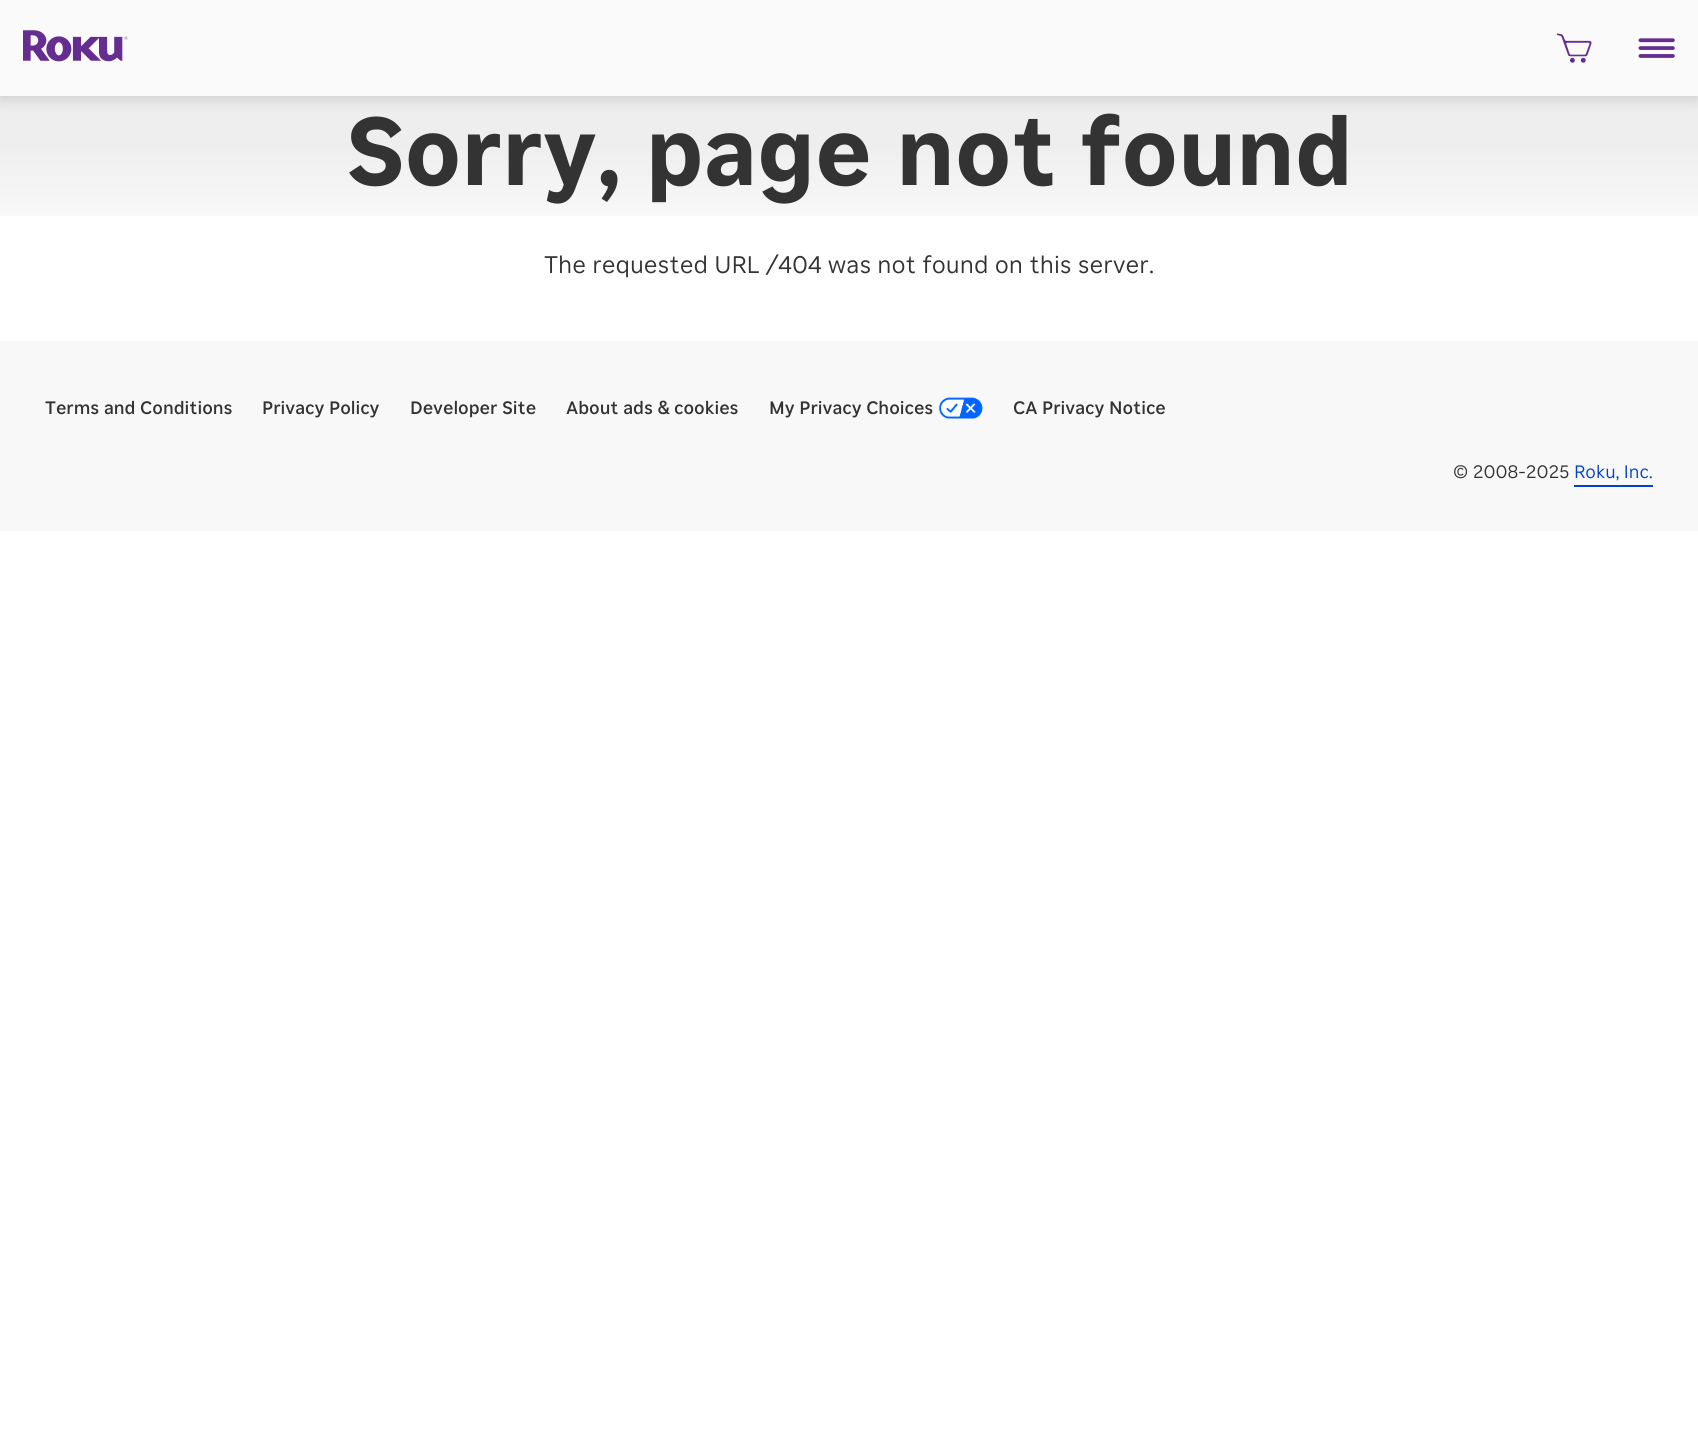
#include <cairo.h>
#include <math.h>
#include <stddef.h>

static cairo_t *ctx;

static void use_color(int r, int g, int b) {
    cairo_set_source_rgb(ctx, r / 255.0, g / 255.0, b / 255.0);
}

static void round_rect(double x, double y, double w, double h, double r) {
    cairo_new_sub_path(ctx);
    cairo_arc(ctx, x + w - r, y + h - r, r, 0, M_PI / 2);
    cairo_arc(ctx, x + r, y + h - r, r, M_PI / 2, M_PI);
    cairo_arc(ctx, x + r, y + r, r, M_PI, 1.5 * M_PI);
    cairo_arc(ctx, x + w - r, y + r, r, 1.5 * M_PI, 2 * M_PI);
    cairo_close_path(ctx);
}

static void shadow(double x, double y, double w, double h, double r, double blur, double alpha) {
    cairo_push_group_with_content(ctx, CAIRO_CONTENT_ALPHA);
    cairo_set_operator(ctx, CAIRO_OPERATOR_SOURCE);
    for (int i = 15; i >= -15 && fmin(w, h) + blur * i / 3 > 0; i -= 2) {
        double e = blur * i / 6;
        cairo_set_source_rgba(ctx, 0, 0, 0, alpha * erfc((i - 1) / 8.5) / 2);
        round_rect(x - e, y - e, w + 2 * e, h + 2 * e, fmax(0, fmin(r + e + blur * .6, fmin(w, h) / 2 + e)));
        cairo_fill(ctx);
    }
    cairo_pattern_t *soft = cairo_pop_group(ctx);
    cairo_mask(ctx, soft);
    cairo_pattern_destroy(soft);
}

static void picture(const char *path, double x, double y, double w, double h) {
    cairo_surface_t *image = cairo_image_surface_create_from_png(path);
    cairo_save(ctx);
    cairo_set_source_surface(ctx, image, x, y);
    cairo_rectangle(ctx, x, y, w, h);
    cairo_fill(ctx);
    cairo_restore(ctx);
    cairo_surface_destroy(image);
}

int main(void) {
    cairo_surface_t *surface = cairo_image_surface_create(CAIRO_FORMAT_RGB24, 1698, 1441);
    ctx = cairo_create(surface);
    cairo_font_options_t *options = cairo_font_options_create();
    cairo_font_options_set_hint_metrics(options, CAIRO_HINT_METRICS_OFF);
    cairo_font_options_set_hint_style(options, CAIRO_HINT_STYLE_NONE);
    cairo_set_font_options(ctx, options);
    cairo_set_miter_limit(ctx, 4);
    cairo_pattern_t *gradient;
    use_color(255, 255, 255);
    cairo_paint(ctx);
    gradient = cairo_pattern_create_linear(849, 96, 849, 216);
    cairo_pattern_add_color_stop_rgba(gradient, 0.4, 0.933, 0.933, 0.933, 1);
    cairo_pattern_add_color_stop_rgba(gradient, 1, 0.973, 0.973, 0.973, 1);
    cairo_set_source(ctx, gradient);
    cairo_pattern_destroy(gradient);
    cairo_rectangle(ctx, 0, 96, 1698, 120);
    cairo_fill(ctx);
    use_color(0, 0, 0);
    shadow(0, 3, 1698, 96, 0, 7.5, 0.15);
    use_color(250, 250, 250);
    cairo_rectangle(ctx, 0, 0, 1698, 96);
    cairo_fill(ctx);
    picture("img1.png", 23, 30, 105, 32);
    picture("img2.png", 1556, 33, 36, 30);
    picture("img3.png", 1638, 38, 37, 20);
    cairo_select_font_face(ctx, "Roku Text", CAIRO_FONT_SLANT_NORMAL, CAIRO_FONT_WEIGHT_BOLD);
    cairo_set_font_size(ctx, 96);
    use_color(51, 51, 51);
    cairo_move_to(ctx, 346, 185);
    cairo_show_text(ctx, "Sorry, page not found");
    cairo_select_font_face(ctx, "Roku Text", CAIRO_FONT_SLANT_NORMAL, CAIRO_FONT_WEIGHT_NORMAL);
    cairo_set_font_size(ctx, 24);
    cairo_move_to(ctx, 544, 273);
    cairo_show_text(ctx, "The requested URL /404 was not found on this server.");
    use_color(248, 248, 248);
    cairo_rectangle(ctx, 0, 341, 1698, 190);
    cairo_fill(ctx);
    cairo_select_font_face(ctx, "Roku Text Medium", CAIRO_FONT_SLANT_NORMAL, CAIRO_FONT_WEIGHT_NORMAL);
    cairo_set_font_size(ctx, 18);
    use_color(51, 51, 51);
    cairo_move_to(ctx, 45, 414);
    cairo_show_text(ctx, "Terms and Conditions");
    cairo_move_to(ctx, 262, 414);
    cairo_show_text(ctx, "Privacy Policy");
    cairo_move_to(ctx, 410, 414);
    cairo_show_text(ctx, "Developer Site");
    cairo_move_to(ctx, 566, 414);
    cairo_show_text(ctx, "About ads & cookies");
    cairo_move_to(ctx, 769, 414);
    cairo_show_text(ctx, "My Privacy Choices");
    picture("img4.png", 939, 397, 44, 22);
    cairo_move_to(ctx, 1013, 414);
    cairo_show_text(ctx, "CA Privacy Notice");
    cairo_select_font_face(ctx, "Roku Text", CAIRO_FONT_SLANT_NORMAL, CAIRO_FONT_WEIGHT_NORMAL);
    cairo_move_to(ctx, 1453, 478);
    cairo_show_text(ctx, "© 2008-2025");
    use_color(0, 66, 204);
    cairo_move_to(ctx, 1574, 478);
    cairo_show_text(ctx, "Roku, Inc.");
    cairo_rectangle(ctx, 1574, 485, 79, 2);
    cairo_fill(ctx);
    cairo_surface_write_to_png(surface, "result.png");
    cairo_font_options_destroy(options);
    cairo_destroy(ctx);
    cairo_surface_destroy(surface);
    return 0;
}
